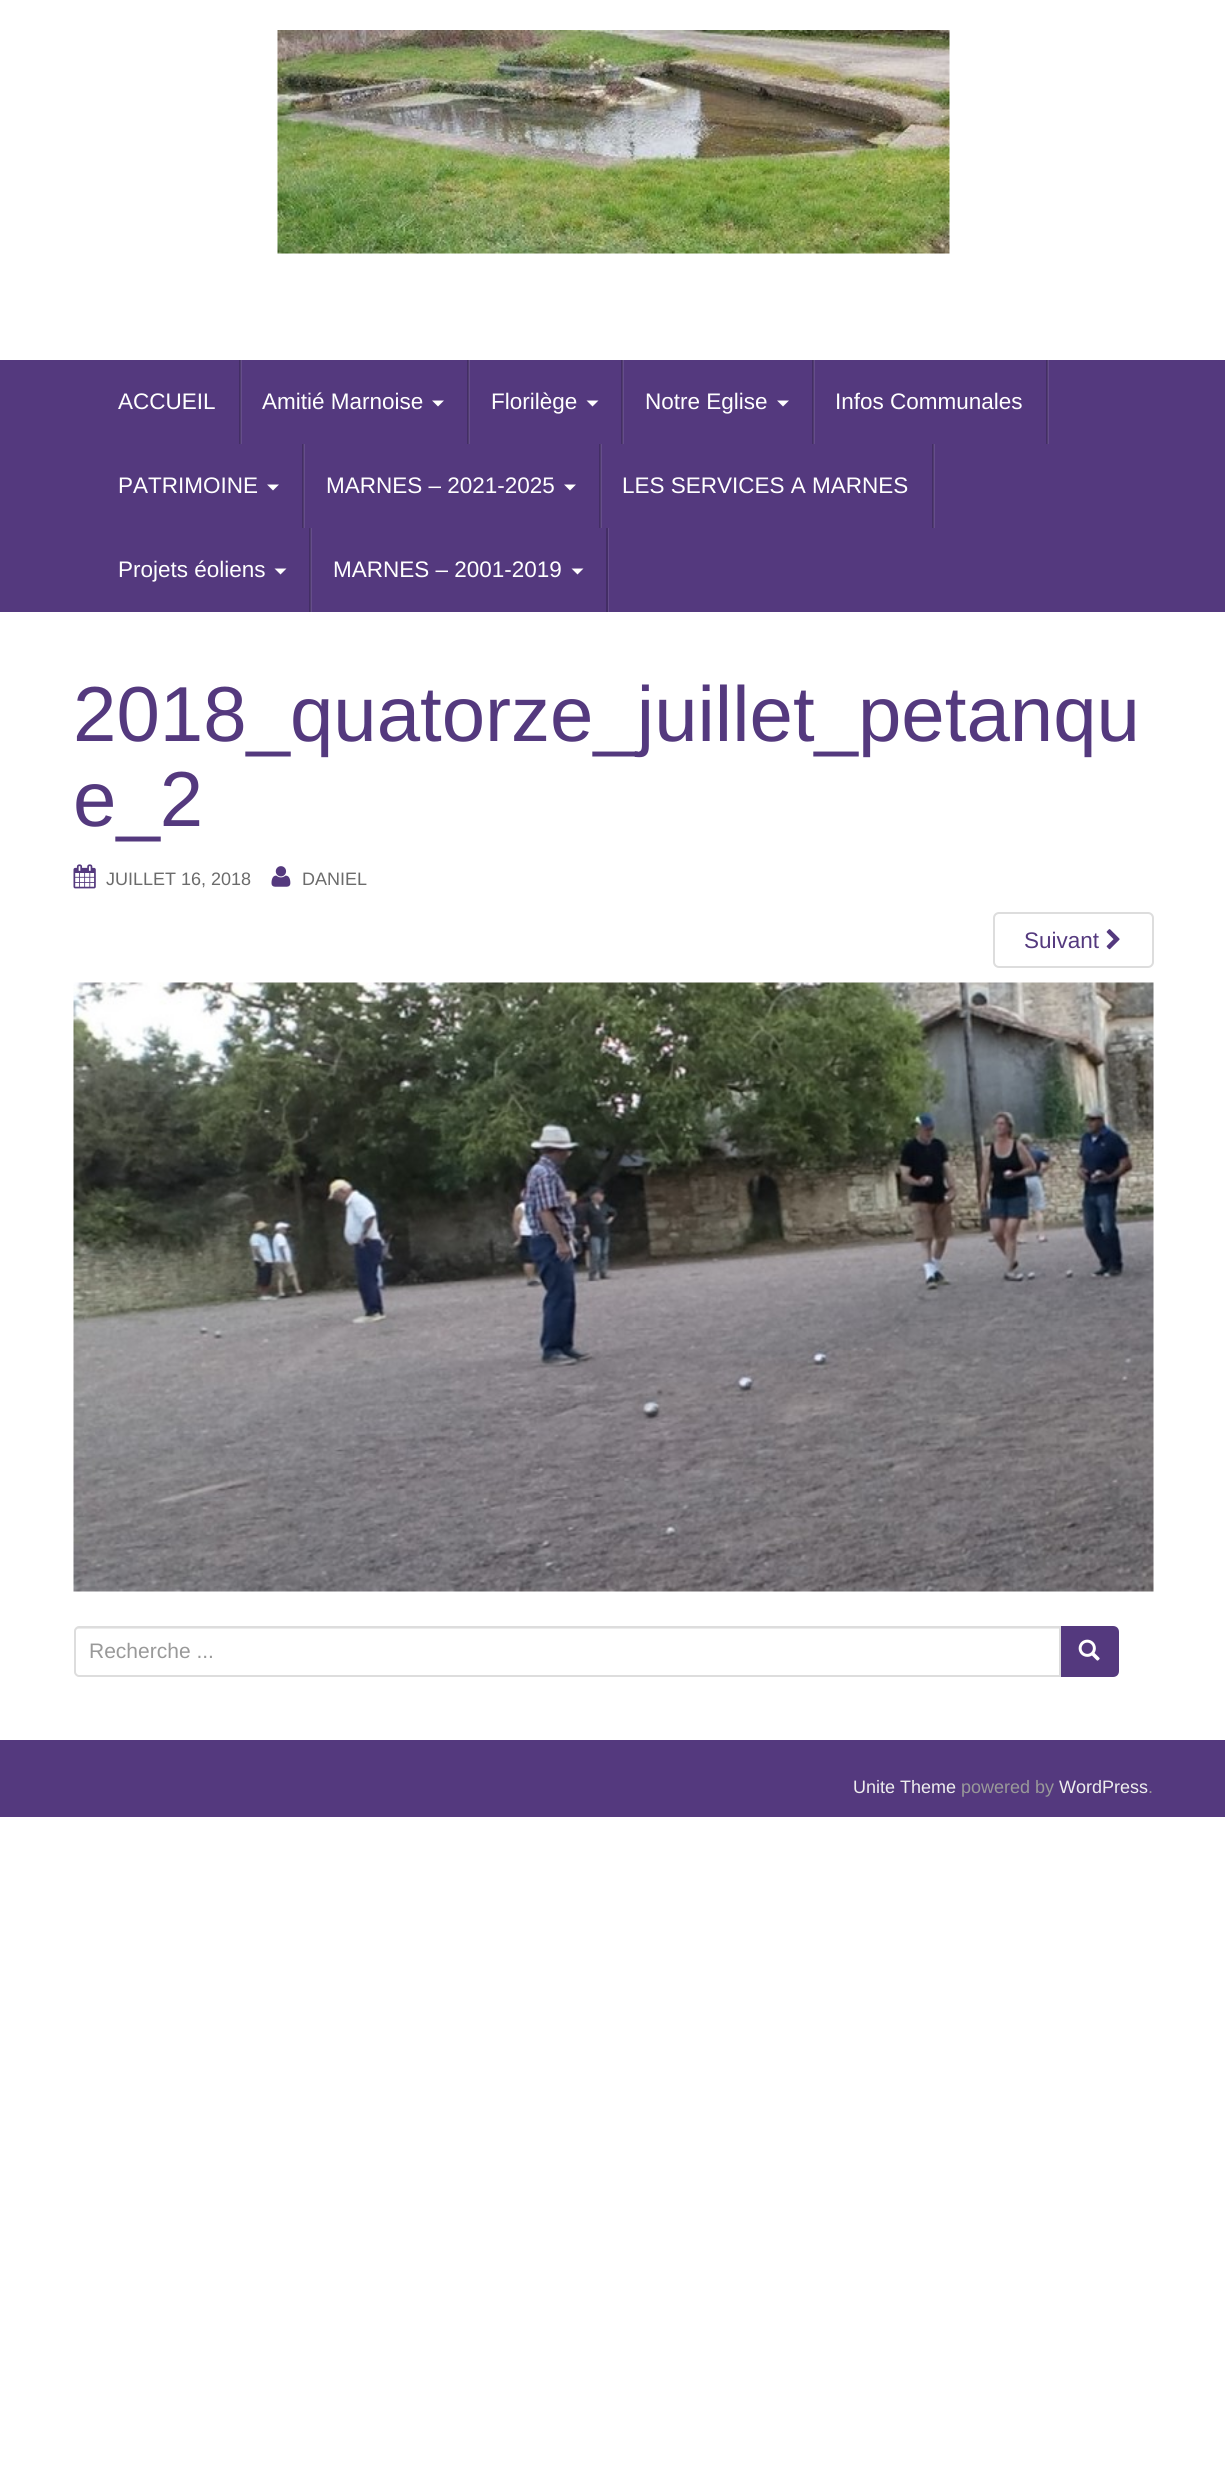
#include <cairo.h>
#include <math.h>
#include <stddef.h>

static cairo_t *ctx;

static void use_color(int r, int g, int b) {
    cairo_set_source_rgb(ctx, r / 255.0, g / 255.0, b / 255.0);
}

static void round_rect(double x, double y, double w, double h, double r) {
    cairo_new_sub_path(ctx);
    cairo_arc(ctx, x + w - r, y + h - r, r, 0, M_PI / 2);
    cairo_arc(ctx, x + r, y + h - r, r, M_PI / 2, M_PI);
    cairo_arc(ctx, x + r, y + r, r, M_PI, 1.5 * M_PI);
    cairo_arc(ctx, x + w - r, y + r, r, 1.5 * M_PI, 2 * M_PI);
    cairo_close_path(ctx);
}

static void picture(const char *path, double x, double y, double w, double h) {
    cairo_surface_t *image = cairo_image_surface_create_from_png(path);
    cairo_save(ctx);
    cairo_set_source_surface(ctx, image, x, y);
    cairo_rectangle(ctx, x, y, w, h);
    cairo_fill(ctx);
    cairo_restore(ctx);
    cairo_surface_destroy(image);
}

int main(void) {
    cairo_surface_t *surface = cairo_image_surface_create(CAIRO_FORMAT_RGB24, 1225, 2481);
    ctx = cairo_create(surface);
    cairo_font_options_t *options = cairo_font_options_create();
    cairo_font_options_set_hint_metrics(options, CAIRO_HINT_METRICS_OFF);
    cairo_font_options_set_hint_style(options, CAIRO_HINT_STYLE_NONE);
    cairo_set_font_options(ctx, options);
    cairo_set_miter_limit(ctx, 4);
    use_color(255, 255, 255);
    cairo_paint(ctx);
    picture("img1.png", 277, 30, 673, 224);
    use_color(84, 57, 126);
    cairo_rectangle(ctx, 0, 360, 1225, 252);
    cairo_fill(ctx);
    use_color(67, 46, 101);
    cairo_rectangle(ctx, 309, 528, 1, 84);
    cairo_fill(ctx);
    cairo_rectangle(ctx, 932, 444, 1, 84);
    cairo_fill(ctx);
    cairo_rectangle(ctx, 599, 444, 1, 84);
    cairo_fill(ctx);
    cairo_rectangle(ctx, 302, 444, 1, 84);
    cairo_fill(ctx);
    cairo_rectangle(ctx, 1046, 360, 1, 84);
    cairo_fill(ctx);
    cairo_rectangle(ctx, 812, 360, 1, 84);
    cairo_fill(ctx);
    cairo_rectangle(ctx, 621, 360, 1, 84);
    cairo_fill(ctx);
    cairo_rectangle(ctx, 467, 360, 1, 84);
    cairo_fill(ctx);
    cairo_rectangle(ctx, 239, 360, 1, 84);
    cairo_fill(ctx);
    use_color(101, 77, 139);
    cairo_rectangle(ctx, 241, 360, 1, 84);
    cairo_fill(ctx);
    use_color(81, 62, 111);
    cairo_rectangle(ctx, 240, 360, 1, 84);
    cairo_fill(ctx);
    cairo_select_font_face(ctx, "Liberation Sans", CAIRO_FONT_SLANT_NORMAL, CAIRO_FONT_WEIGHT_NORMAL);
    cairo_set_font_size(ctx, 22.5);
    use_color(255, 255, 255);
    cairo_move_to(ctx, 118, 409);
    cairo_show_text(ctx, "ACCUEIL");
    use_color(101, 77, 139);
    cairo_rectangle(ctx, 469, 360, 1, 84);
    cairo_fill(ctx);
    use_color(81, 62, 111);
    cairo_rectangle(ctx, 468, 360, 1, 84);
    cairo_fill(ctx);
    use_color(255, 255, 255);
    cairo_move_to(ctx, 262, 409);
    cairo_show_text(ctx, "Amitié Marnoise");
    cairo_new_path(ctx);
    cairo_move_to(ctx, 432, 400.5);
    cairo_line_to(ctx, 444, 400.5);
    cairo_line_to(ctx, 438, 406.5);
    cairo_close_path(ctx);
    cairo_fill(ctx);
    use_color(101, 77, 139);
    cairo_rectangle(ctx, 623, 360, 1, 84);
    cairo_fill(ctx);
    use_color(81, 62, 111);
    cairo_rectangle(ctx, 622, 360, 1, 84);
    cairo_fill(ctx);
    use_color(255, 255, 255);
    cairo_move_to(ctx, 491, 409);
    cairo_show_text(ctx, "Florilège");
    cairo_new_path(ctx);
    cairo_move_to(ctx, 586.5, 400.5);
    cairo_line_to(ctx, 598.5, 400.5);
    cairo_line_to(ctx, 592.5, 406.5);
    cairo_close_path(ctx);
    cairo_fill(ctx);
    use_color(101, 77, 139);
    cairo_rectangle(ctx, 814, 360, 1, 84);
    cairo_fill(ctx);
    use_color(81, 62, 111);
    cairo_rectangle(ctx, 813, 360, 1, 84);
    cairo_fill(ctx);
    use_color(255, 255, 255);
    cairo_move_to(ctx, 645, 409);
    cairo_show_text(ctx, "Notre Eglise");
    cairo_new_path(ctx);
    cairo_move_to(ctx, 777, 400.5);
    cairo_line_to(ctx, 789, 400.5);
    cairo_line_to(ctx, 783, 406.5);
    cairo_close_path(ctx);
    cairo_fill(ctx);
    use_color(101, 77, 139);
    cairo_rectangle(ctx, 1048, 360, 1, 84);
    cairo_fill(ctx);
    use_color(81, 62, 111);
    cairo_rectangle(ctx, 1047, 360, 1, 84);
    cairo_fill(ctx);
    use_color(255, 255, 255);
    cairo_move_to(ctx, 835, 409);
    cairo_show_text(ctx, "Infos Communales");
    use_color(101, 77, 139);
    cairo_rectangle(ctx, 304, 444, 1, 84);
    cairo_fill(ctx);
    use_color(81, 62, 111);
    cairo_rectangle(ctx, 303, 444, 1, 84);
    cairo_fill(ctx);
    use_color(255, 255, 255);
    cairo_move_to(ctx, 118, 493);
    cairo_show_text(ctx, "PATRIMOINE");
    cairo_new_path(ctx);
    cairo_move_to(ctx, 267, 484.5);
    cairo_line_to(ctx, 279, 484.5);
    cairo_line_to(ctx, 273, 490.5);
    cairo_close_path(ctx);
    cairo_fill(ctx);
    use_color(101, 77, 139);
    cairo_rectangle(ctx, 601, 444, 1, 84);
    cairo_fill(ctx);
    use_color(81, 62, 111);
    cairo_rectangle(ctx, 600, 444, 1, 84);
    cairo_fill(ctx);
    use_color(255, 255, 255);
    cairo_move_to(ctx, 326, 493);
    cairo_show_text(ctx, "MARNES – 2021-2025");
    cairo_new_path(ctx);
    cairo_move_to(ctx, 564, 484.5);
    cairo_line_to(ctx, 576, 484.5);
    cairo_line_to(ctx, 570, 490.5);
    cairo_close_path(ctx);
    cairo_fill(ctx);
    use_color(101, 77, 139);
    cairo_rectangle(ctx, 934, 444, 1, 84);
    cairo_fill(ctx);
    use_color(81, 62, 111);
    cairo_rectangle(ctx, 933, 444, 1, 84);
    cairo_fill(ctx);
    use_color(255, 255, 255);
    cairo_move_to(ctx, 622, 493);
    cairo_show_text(ctx, "LES SERVICES A MARNES");
    use_color(101, 77, 139);
    cairo_rectangle(ctx, 311, 528, 1, 84);
    cairo_fill(ctx);
    use_color(81, 62, 111);
    cairo_rectangle(ctx, 310, 528, 1, 84);
    cairo_fill(ctx);
    use_color(255, 255, 255);
    cairo_move_to(ctx, 118, 577);
    cairo_show_text(ctx, "Projets éoliens");
    cairo_new_path(ctx);
    cairo_move_to(ctx, 274.5, 568.5);
    cairo_line_to(ctx, 286.5, 568.5);
    cairo_line_to(ctx, 280.5, 574.5);
    cairo_close_path(ctx);
    cairo_fill(ctx);
    use_color(101, 77, 139);
    cairo_rectangle(ctx, 608, 528, 1, 84);
    cairo_fill(ctx);
    use_color(67, 46, 101);
    cairo_rectangle(ctx, 606, 528, 2, 84);
    cairo_fill(ctx);
    use_color(255, 255, 255);
    cairo_move_to(ctx, 333, 577);
    cairo_show_text(ctx, "MARNES – 2001-2019");
    cairo_new_path(ctx);
    cairo_move_to(ctx, 571.5, 568.5);
    cairo_line_to(ctx, 583.5, 568.5);
    cairo_line_to(ctx, 577.5, 574.5);
    cairo_close_path(ctx);
    cairo_fill(ctx);
    cairo_set_font_size(ctx, 78);
    use_color(84, 57, 126);
    cairo_move_to(ctx, 73, 741);
    cairo_show_text(ctx, "2018_quatorze_juillet_petanqu");
    cairo_move_to(ctx, 73, 826);
    cairo_show_text(ctx, "e_2");
    picture("img2.png", 73, 864, 23, 25);
    cairo_set_font_size(ctx, 18);
    use_color(107, 107, 107);
    cairo_move_to(ctx, 106, 885);
    cairo_show_text(ctx, "JUILLET 16, 2018");
    picture("img3.png", 271, 866, 20, 21);
    cairo_move_to(ctx, 302, 885);
    cairo_show_text(ctx, "DANIEL");
    round_rect(994, 913, 159, 54, 5);
    use_color(221, 221, 221);
    cairo_stroke(ctx);
    cairo_set_font_size(ctx, 22.5);
    use_color(84, 57, 126);
    cairo_move_to(ctx, 1024, 948);
    cairo_show_text(ctx, "Suivant");
    picture("img4.png", 1106, 929, 14, 21);
    picture("img5.png", 73, 982, 1081, 610);
    cairo_new_path(ctx);
    cairo_move_to(ctx, 1060, 1627);
    cairo_line_to(ctx, 1113, 1627);
    cairo_curve_to(ctx, 1116, 1627, 1118, 1629, 1118, 1632);
    cairo_line_to(ctx, 1118, 1671);
    cairo_curve_to(ctx, 1118, 1674, 1116, 1676, 1113, 1676);
    cairo_line_to(ctx, 1060, 1676);
    cairo_close_path(ctx);
    cairo_fill_preserve(ctx);
    cairo_stroke(ctx);
    use_color(255, 255, 255);
    cairo_new_path(ctx);
    cairo_move_to(ctx, 79, 1626);
    cairo_line_to(ctx, 1061, 1626);
    cairo_line_to(ctx, 1061, 1677);
    cairo_line_to(ctx, 79, 1677);
    cairo_curve_to(ctx, 76, 1677, 74, 1675, 74, 1672);
    cairo_line_to(ctx, 74, 1631);
    cairo_curve_to(ctx, 74, 1628, 76, 1626, 79, 1626);
    cairo_close_path(ctx);
    cairo_fill(ctx);
    use_color(236, 236, 236);
    cairo_new_path(ctx);
    cairo_move_to(ctx, 78, 1629);
    cairo_line_to(ctx, 1059, 1629);
    cairo_line_to(ctx, 1059, 1628);
    cairo_line_to(ctx, 78, 1628);
    cairo_curve_to(ctx, 76, 1628, 75, 1630, 75, 1632);
    cairo_curve_to(ctx, 75, 1630, 76, 1629, 78, 1629);
    cairo_close_path(ctx);
    cairo_fill(ctx);
    cairo_new_path(ctx);
    cairo_move_to(ctx, 79, 1627);
    cairo_line_to(ctx, 1060, 1627);
    cairo_line_to(ctx, 1060, 1676);
    cairo_line_to(ctx, 79, 1676);
    cairo_curve_to(ctx, 77, 1676, 75, 1674, 75, 1672);
    cairo_line_to(ctx, 75, 1631);
    cairo_curve_to(ctx, 75, 1629, 77, 1627, 79, 1627);
    cairo_close_path(ctx);
    use_color(221, 221, 221);
    cairo_stroke(ctx);
    cairo_set_font_size(ctx, 21);
    use_color(153, 153, 153);
    cairo_move_to(ctx, 89, 1658);
    cairo_show_text(ctx, "Recherche ...");
    picture("img6.png", 1078, 1639, 22, 22);
    use_color(84, 57, 126);
    cairo_rectangle(ctx, 0, 1740, 1225, 77);
    cairo_fill(ctx);
    cairo_set_font_size(ctx, 18);
    use_color(238, 238, 238);
    cairo_move_to(ctx, 853, 1793);
    cairo_show_text(ctx, "Unite Theme");
    use_color(153, 153, 153);
    cairo_move_to(ctx, 961, 1793);
    cairo_show_text(ctx, "powered by");
    use_color(238, 238, 238);
    cairo_move_to(ctx, 1059, 1793);
    cairo_show_text(ctx, "WordPress");
    use_color(153, 153, 153);
    cairo_move_to(ctx, 1148, 1793);
    cairo_show_text(ctx, ".");
    cairo_surface_write_to_png(surface, "result.png");
    cairo_font_options_destroy(options);
    cairo_destroy(ctx);
    cairo_surface_destroy(surface);
    return 0;
}
